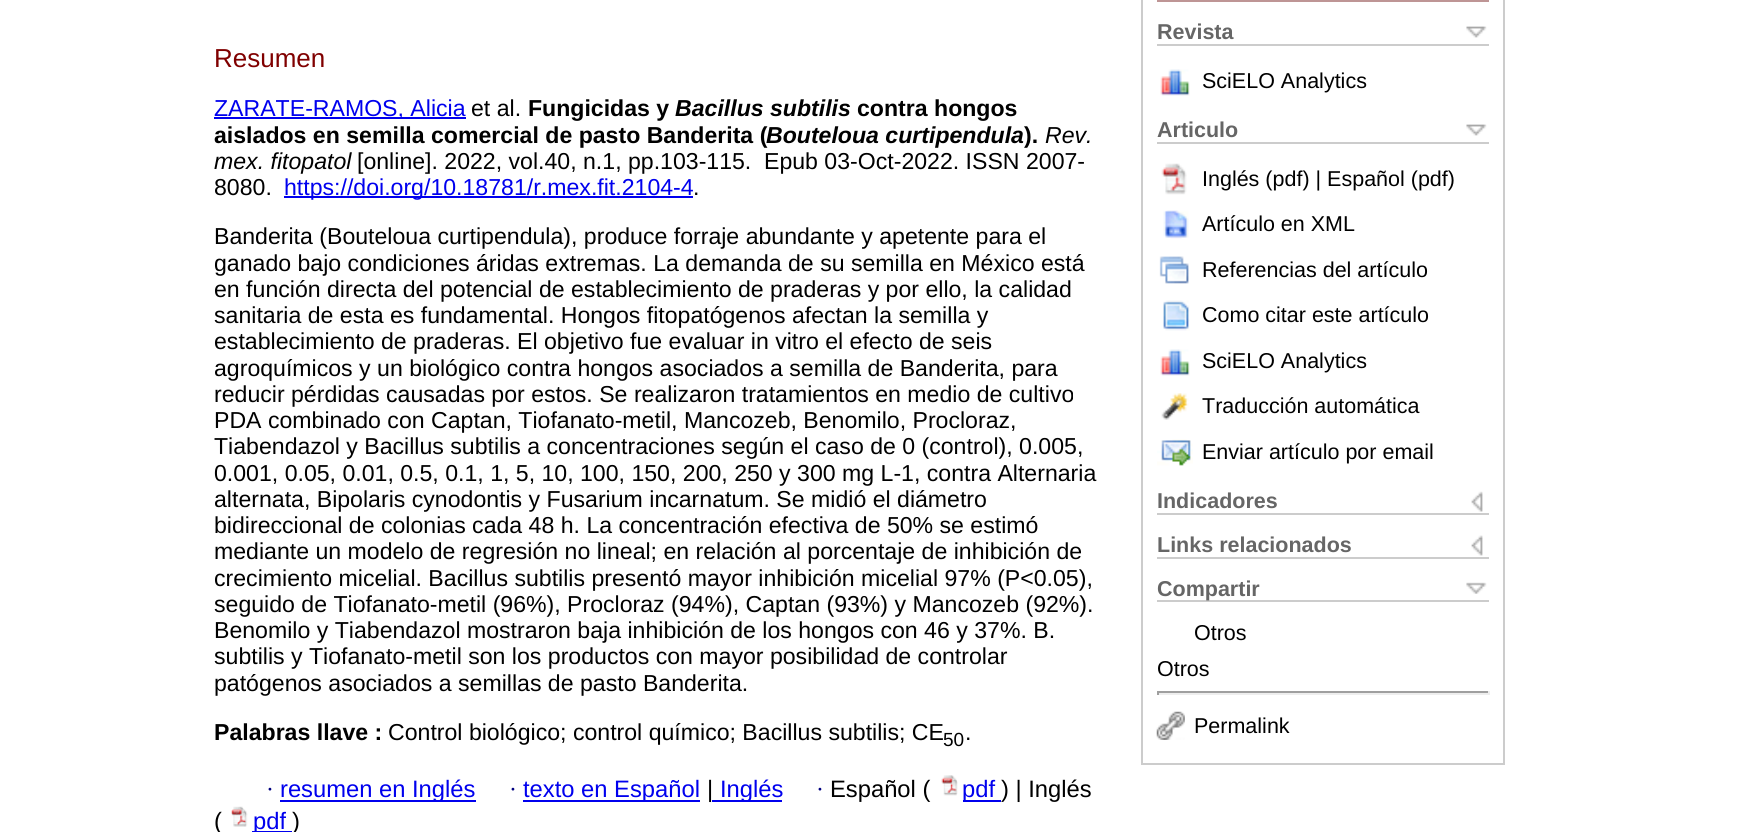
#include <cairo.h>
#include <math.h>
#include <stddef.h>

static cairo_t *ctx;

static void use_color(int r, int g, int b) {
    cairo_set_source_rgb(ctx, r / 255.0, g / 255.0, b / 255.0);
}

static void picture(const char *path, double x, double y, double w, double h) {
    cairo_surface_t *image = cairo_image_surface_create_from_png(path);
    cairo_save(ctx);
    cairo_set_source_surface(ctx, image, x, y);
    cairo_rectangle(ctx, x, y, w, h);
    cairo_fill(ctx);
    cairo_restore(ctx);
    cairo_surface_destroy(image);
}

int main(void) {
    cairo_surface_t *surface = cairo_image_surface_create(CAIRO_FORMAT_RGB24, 1756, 832);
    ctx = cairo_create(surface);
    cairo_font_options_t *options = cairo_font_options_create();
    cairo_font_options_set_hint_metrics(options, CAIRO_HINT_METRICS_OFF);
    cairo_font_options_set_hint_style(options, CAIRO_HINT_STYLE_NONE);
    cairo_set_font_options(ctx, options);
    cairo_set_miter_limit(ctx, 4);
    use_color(255, 255, 255);
    cairo_paint(ctx);
    cairo_select_font_face(ctx, "Liberation Sans", CAIRO_FONT_SLANT_NORMAL, CAIRO_FONT_WEIGHT_NORMAL);
    cairo_set_font_size(ctx, 26);
    use_color(128, 0, 0);
    cairo_move_to(ctx, 214, 67);
    cairo_show_text(ctx, "Resumen");
    use_color(0, 0, 238);
    cairo_rectangle(ctx, 214, 117, 252, 2);
    cairo_fill(ctx);
    cairo_set_font_size(ctx, 23.1);
    cairo_move_to(ctx, 214, 116);
    cairo_show_text(ctx, "ZARATE-RAMOS, Alicia");
    use_color(0, 0, 0);
    cairo_move_to(ctx, 471, 116);
    cairo_show_text(ctx, "et al.");
    cairo_select_font_face(ctx, "Liberation Sans", CAIRO_FONT_SLANT_NORMAL, CAIRO_FONT_WEIGHT_BOLD);
    cairo_move_to(ctx, 528, 116);
    cairo_show_text(ctx, "Fungicidas y");
    cairo_select_font_face(ctx, "Liberation Sans", CAIRO_FONT_SLANT_ITALIC, CAIRO_FONT_WEIGHT_BOLD);
    cairo_move_to(ctx, 675, 116);
    cairo_show_text(ctx, "Bacillus subtilis");
    cairo_select_font_face(ctx, "Liberation Sans", CAIRO_FONT_SLANT_NORMAL, CAIRO_FONT_WEIGHT_BOLD);
    cairo_move_to(ctx, 857, 116);
    cairo_show_text(ctx, "contra hongos");
    cairo_move_to(ctx, 214, 143);
    cairo_show_text(ctx, "aislados en semilla comercial de pasto Banderita (");
    cairo_select_font_face(ctx, "Liberation Sans", CAIRO_FONT_SLANT_ITALIC, CAIRO_FONT_WEIGHT_BOLD);
    cairo_move_to(ctx, 766, 143);
    cairo_show_text(ctx, "Bouteloua curtipendula");
    cairo_select_font_face(ctx, "Liberation Sans", CAIRO_FONT_SLANT_NORMAL, CAIRO_FONT_WEIGHT_BOLD);
    cairo_move_to(ctx, 1024, 143);
    cairo_show_text(ctx, ").");
    cairo_select_font_face(ctx, "Liberation Sans", CAIRO_FONT_SLANT_ITALIC, CAIRO_FONT_WEIGHT_NORMAL);
    cairo_move_to(ctx, 1045, 143);
    cairo_show_text(ctx, "Rev.");
    cairo_move_to(ctx, 214, 169);
    cairo_show_text(ctx, "mex. fitopatol");
    cairo_select_font_face(ctx, "Liberation Sans", CAIRO_FONT_SLANT_NORMAL, CAIRO_FONT_WEIGHT_NORMAL);
    cairo_move_to(ctx, 357, 169);
    cairo_show_text(ctx, "[online]. 2022, vol.40, n.1, pp.103-115.");
    cairo_move_to(ctx, 764, 169);
    cairo_show_text(ctx, "Epub 03-Oct-2022. ISSN 2007-");
    cairo_move_to(ctx, 214, 195);
    cairo_show_text(ctx, "8080.");
    use_color(0, 0, 238);
    cairo_rectangle(ctx, 284, 196, 409, 2);
    cairo_fill(ctx);
    cairo_move_to(ctx, 284, 195);
    cairo_show_text(ctx, "https://doi.org/10.18781/r.mex.fit.2104-4");
    use_color(0, 0, 0);
    cairo_move_to(ctx, 693, 195);
    cairo_show_text(ctx, ".");
    cairo_move_to(ctx, 214, 244);
    cairo_show_text(ctx, "Banderita (Bouteloua curtipendula), produce forraje abundante y apetente para el");
    cairo_move_to(ctx, 214, 271);
    cairo_show_text(ctx, "ganado bajo condiciones áridas extremas. La demanda de su semilla en México está");
    cairo_move_to(ctx, 214, 297);
    cairo_show_text(ctx, "en función directa del potencial de establecimiento de praderas y por ello, la calidad");
    cairo_move_to(ctx, 214, 323);
    cairo_show_text(ctx, "sanitaria de esta es fundamental. Hongos fitopatógenos afectan la semilla y");
    cairo_move_to(ctx, 214, 349);
    cairo_show_text(ctx, "establecimiento de praderas. El objetivo fue evaluar in vitro el efecto de seis");
    cairo_move_to(ctx, 214, 376);
    cairo_show_text(ctx, "agroquímicos y un biológico contra hongos asociados a semilla de Banderita, para");
    cairo_move_to(ctx, 214, 402);
    cairo_show_text(ctx, "reducir pérdidas causadas por estos. Se realizaron tratamientos en medio de cultivo");
    cairo_move_to(ctx, 214, 428);
    cairo_show_text(ctx, "PDA combinado con Captan, Tiofanato-metil, Mancozeb, Benomilo, Procloraz,");
    cairo_move_to(ctx, 214, 454);
    cairo_show_text(ctx, "Tiabendazol y Bacillus subtilis a concentraciones según el caso de 0 (control), 0.005,");
    cairo_move_to(ctx, 214, 481);
    cairo_show_text(ctx, "0.001, 0.05, 0.01, 0.5, 0.1, 1, 5, 10, 100, 150, 200, 250 y 300 mg L-1, contra Alternaria");
    cairo_move_to(ctx, 214, 507);
    cairo_show_text(ctx, "alternata, Bipolaris cynodontis y Fusarium incarnatum. Se midió el diámetro");
    cairo_move_to(ctx, 214, 533);
    cairo_show_text(ctx, "bidireccional de colonias cada 48 h. La concentración efectiva de 50% se estimó");
    cairo_move_to(ctx, 214, 559);
    cairo_show_text(ctx, "mediante un modelo de regresión no lineal; en relación al porcentaje de inhibición de");
    cairo_move_to(ctx, 214, 586);
    cairo_show_text(ctx, "crecimiento micelial. Bacillus subtilis presentó mayor inhibición micelial 97% (P<0.05),");
    cairo_move_to(ctx, 214, 612);
    cairo_show_text(ctx, "seguido de Tiofanato-metil (96%), Procloraz (94%), Captan (93%) y Mancozeb (92%).");
    cairo_move_to(ctx, 214, 638);
    cairo_show_text(ctx, "Benomilo y Tiabendazol mostraron baja inhibición de los hongos con 46 y 37%. B.");
    cairo_move_to(ctx, 214, 664);
    cairo_show_text(ctx, "subtilis y Tiofanato-metil son los productos con mayor posibilidad de controlar");
    cairo_move_to(ctx, 214, 691);
    cairo_show_text(ctx, "patógenos asociados a semillas de pasto Banderita.");
    cairo_select_font_face(ctx, "Liberation Sans", CAIRO_FONT_SLANT_NORMAL, CAIRO_FONT_WEIGHT_BOLD);
    cairo_move_to(ctx, 214, 740);
    cairo_show_text(ctx, "Palabras llave :");
    cairo_select_font_face(ctx, "Liberation Sans", CAIRO_FONT_SLANT_NORMAL, CAIRO_FONT_WEIGHT_NORMAL);
    cairo_move_to(ctx, 388, 740);
    cairo_show_text(ctx, "Control biológico; control químico; Bacillus subtilis; CE");
    cairo_set_font_size(ctx, 19);
    cairo_move_to(ctx, 943, 746);
    cairo_show_text(ctx, "50");
    cairo_set_font_size(ctx, 23.1);
    cairo_move_to(ctx, 965, 740);
    cairo_show_text(ctx, ".");
    cairo_select_font_face(ctx, "Liberation Serif", CAIRO_FONT_SLANT_NORMAL, CAIRO_FONT_WEIGHT_NORMAL);
    cairo_set_font_size(ctx, 23.75);
    use_color(0, 0, 128);
    cairo_move_to(ctx, 266, 797);
    cairo_show_text(ctx, "·");
    use_color(0, 0, 238);
    cairo_rectangle(ctx, 280, 800, 196, 2);
    cairo_fill(ctx);
    cairo_select_font_face(ctx, "Liberation Sans", CAIRO_FONT_SLANT_NORMAL, CAIRO_FONT_WEIGHT_NORMAL);
    cairo_move_to(ctx, 280, 797);
    cairo_show_text(ctx, "resumen en Inglés");
    cairo_select_font_face(ctx, "Liberation Serif", CAIRO_FONT_SLANT_NORMAL, CAIRO_FONT_WEIGHT_NORMAL);
    use_color(0, 0, 128);
    cairo_move_to(ctx, 509, 797);
    cairo_show_text(ctx, "·");
    use_color(0, 0, 238);
    cairo_rectangle(ctx, 523, 800, 177, 2);
    cairo_fill(ctx);
    cairo_select_font_face(ctx, "Liberation Sans", CAIRO_FONT_SLANT_NORMAL, CAIRO_FONT_WEIGHT_NORMAL);
    cairo_move_to(ctx, 523, 797);
    cairo_show_text(ctx, "texto en Español");
    use_color(0, 0, 0);
    cairo_move_to(ctx, 707, 797);
    cairo_show_text(ctx, "|");
    use_color(0, 0, 238);
    cairo_rectangle(ctx, 712, 800, 70, 2);
    cairo_fill(ctx);
    cairo_move_to(ctx, 720, 797);
    cairo_show_text(ctx, "Inglés");
    cairo_select_font_face(ctx, "Liberation Serif", CAIRO_FONT_SLANT_NORMAL, CAIRO_FONT_WEIGHT_NORMAL);
    use_color(0, 0, 128);
    cairo_move_to(ctx, 816, 797);
    cairo_show_text(ctx, "·");
    cairo_select_font_face(ctx, "Liberation Sans", CAIRO_FONT_SLANT_NORMAL, CAIRO_FONT_WEIGHT_NORMAL);
    use_color(0, 0, 0);
    cairo_move_to(ctx, 830, 797);
    cairo_show_text(ctx, "Español (");
    picture("img1.png", 941, 775, 17, 21);
    use_color(0, 0, 238);
    cairo_rectangle(ctx, 963, 800, 38, 2);
    cairo_fill(ctx);
    cairo_move_to(ctx, 962, 797);
    cairo_show_text(ctx, "pdf");
    use_color(0, 0, 0);
    cairo_move_to(ctx, 1001, 797);
    cairo_show_text(ctx, ") | Inglés");
    cairo_move_to(ctx, 214, 829);
    cairo_show_text(ctx, "(");
    picture("img2.png", 231, 806, 17, 21);
    use_color(0, 0, 238);
    cairo_rectangle(ctx, 252, 831, 40, 1);
    cairo_fill(ctx);
    cairo_move_to(ctx, 253, 829);
    cairo_show_text(ctx, "pdf");
    use_color(0, 0, 0);
    cairo_move_to(ctx, 292, 829);
    cairo_show_text(ctx, ")");
    cairo_rectangle(ctx, 1142, -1, 362, 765);
    use_color(204, 204, 204);
    cairo_stroke(ctx);
    use_color(190, 149, 149);
    cairo_rectangle(ctx, 1157, 0, 332, 2);
    cairo_fill(ctx);
    picture("img3.png", 1466, 26, 21, 12);
    use_color(204, 204, 204);
    cairo_rectangle(ctx, 1157, 44, 332, 2);
    cairo_fill(ctx);
    cairo_select_font_face(ctx, "Liberation Sans", CAIRO_FONT_SLANT_NORMAL, CAIRO_FONT_WEIGHT_BOLD);
    cairo_set_font_size(ctx, 21.5);
    use_color(102, 102, 102);
    cairo_move_to(ctx, 1157, 39);
    cairo_show_text(ctx, "Revista");
    picture("img4.png", 1160, 69, 30, 27);
    cairo_select_font_face(ctx, "Liberation Sans", CAIRO_FONT_SLANT_NORMAL, CAIRO_FONT_WEIGHT_NORMAL);
    use_color(0, 0, 0);
    cairo_move_to(ctx, 1202, 88);
    cairo_show_text(ctx, "SciELO Analytics");
    picture("img3.png", 1466, 124, 21, 12);
    use_color(204, 204, 204);
    cairo_rectangle(ctx, 1157, 142, 332, 2);
    cairo_fill(ctx);
    cairo_select_font_face(ctx, "Liberation Sans", CAIRO_FONT_SLANT_NORMAL, CAIRO_FONT_WEIGHT_BOLD);
    use_color(102, 102, 102);
    cairo_move_to(ctx, 1157, 137);
    cairo_show_text(ctx, "Articulo");
    picture("img5.png", 1161, 163, 26, 32);
    cairo_select_font_face(ctx, "Liberation Sans", CAIRO_FONT_SLANT_NORMAL, CAIRO_FONT_WEIGHT_NORMAL);
    use_color(0, 0, 0);
    cairo_move_to(ctx, 1202, 186);
    cairo_show_text(ctx, "Inglés (pdf) | Español (pdf)");
    picture("img6.png", 1163, 210, 26, 29);
    cairo_move_to(ctx, 1202, 231);
    cairo_show_text(ctx, "Artículo en XML");
    picture("img7.png", 1159, 256, 30, 28);
    cairo_move_to(ctx, 1202, 277);
    cairo_show_text(ctx, "Referencias del artículo");
    picture("img8.png", 1163, 300, 27, 31);
    cairo_move_to(ctx, 1202, 322);
    cairo_show_text(ctx, "Como citar este artículo");
    picture("img4.png", 1160, 349, 30, 27);
    cairo_move_to(ctx, 1202, 368);
    cairo_show_text(ctx, "SciELO Analytics");
    picture("img9.png", 1161, 393, 28, 27);
    cairo_move_to(ctx, 1202, 413);
    cairo_show_text(ctx, "Traducción automática");
    picture("img10.png", 1157, 439, 36, 27);
    cairo_move_to(ctx, 1202, 459);
    cairo_show_text(ctx, "Enviar artículo por email");
    picture("img11.png", 1471, 491, 12, 21);
    use_color(204, 204, 204);
    cairo_rectangle(ctx, 1157, 513, 332, 2);
    cairo_fill(ctx);
    cairo_select_font_face(ctx, "Liberation Sans", CAIRO_FONT_SLANT_NORMAL, CAIRO_FONT_WEIGHT_BOLD);
    use_color(102, 102, 102);
    cairo_move_to(ctx, 1157, 508);
    cairo_show_text(ctx, "Indicadores");
    picture("img12.png", 1471, 535, 12, 21);
    use_color(204, 204, 204);
    cairo_rectangle(ctx, 1157, 557, 332, 2);
    cairo_fill(ctx);
    use_color(102, 102, 102);
    cairo_move_to(ctx, 1157, 552);
    cairo_show_text(ctx, "Links relacionados");
    picture("img13.png", 1466, 582, 21, 12);
    use_color(204, 204, 204);
    cairo_rectangle(ctx, 1157, 600, 332, 2);
    cairo_fill(ctx);
    use_color(102, 102, 102);
    cairo_move_to(ctx, 1157, 596);
    cairo_show_text(ctx, "Compartir");
    cairo_select_font_face(ctx, "Liberation Sans", CAIRO_FONT_SLANT_NORMAL, CAIRO_FONT_WEIGHT_NORMAL);
    use_color(0, 0, 0);
    cairo_move_to(ctx, 1194, 640);
    cairo_show_text(ctx, "Otros");
    cairo_move_to(ctx, 1157, 676);
    cairo_show_text(ctx, "Otros");
    use_color(159, 159, 159);
    cairo_rectangle(ctx, 1157, 691, 332, 2);
    cairo_fill(ctx);
    use_color(238, 238, 238);
    cairo_rectangle(ctx, 1488, 691, 2, 4);
    cairo_fill(ctx);
    cairo_rectangle(ctx, 1157, 693, 332, 2);
    cairo_fill(ctx);
    use_color(159, 159, 159);
    cairo_rectangle(ctx, 1157, 691, 2, 4);
    cairo_fill(ctx);
    picture("img14.png", 1156, 711, 29, 29);
    use_color(0, 0, 0);
    cairo_move_to(ctx, 1194, 733);
    cairo_show_text(ctx, "Permalink");
    cairo_surface_write_to_png(surface, "result.png");
    cairo_font_options_destroy(options);
    cairo_destroy(ctx);
    cairo_surface_destroy(surface);
    return 0;
}
